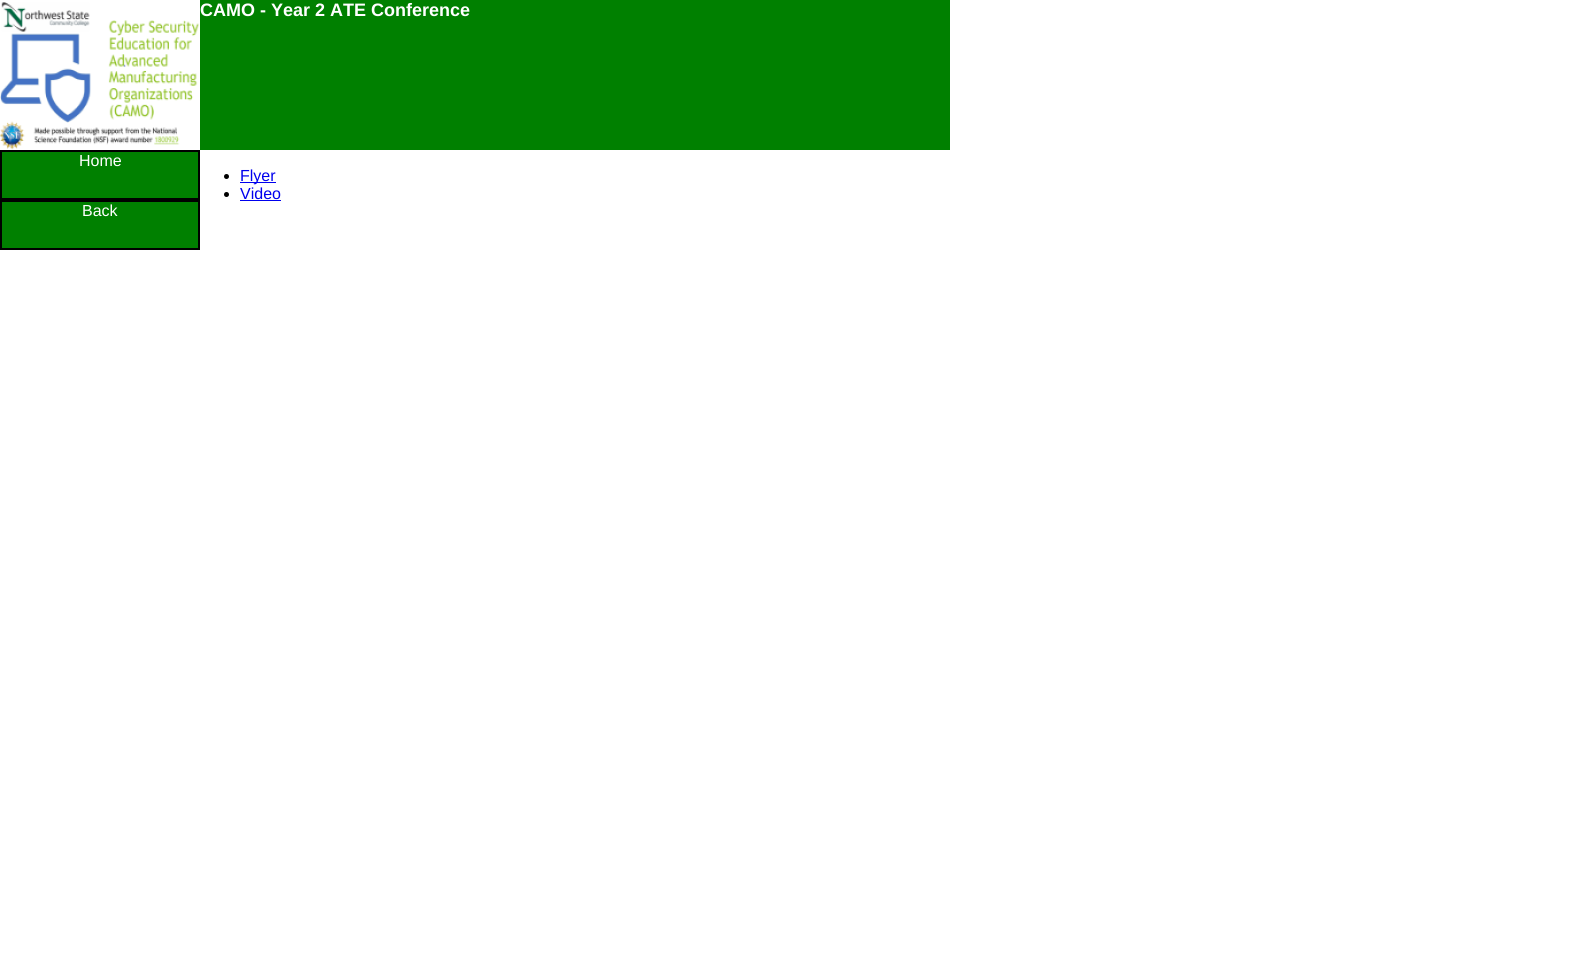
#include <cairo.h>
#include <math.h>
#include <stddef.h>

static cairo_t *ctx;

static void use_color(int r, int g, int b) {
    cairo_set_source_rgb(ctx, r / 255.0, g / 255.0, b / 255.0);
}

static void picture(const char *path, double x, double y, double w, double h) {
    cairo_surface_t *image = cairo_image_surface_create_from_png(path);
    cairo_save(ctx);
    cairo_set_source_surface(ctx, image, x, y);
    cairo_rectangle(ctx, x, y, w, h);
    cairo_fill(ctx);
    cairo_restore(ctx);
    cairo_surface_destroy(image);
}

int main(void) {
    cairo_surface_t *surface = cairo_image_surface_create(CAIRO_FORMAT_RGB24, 1582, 968);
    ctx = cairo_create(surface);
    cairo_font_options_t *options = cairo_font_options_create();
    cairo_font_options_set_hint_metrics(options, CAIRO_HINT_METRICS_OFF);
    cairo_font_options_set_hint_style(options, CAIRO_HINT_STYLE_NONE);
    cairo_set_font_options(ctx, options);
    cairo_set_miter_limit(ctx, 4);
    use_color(255, 255, 255);
    cairo_paint(ctx);
    picture("img1.png", 0, 0, 200, 150);
    use_color(0, 128, 0);
    cairo_rectangle(ctx, 200, 0, 750, 150);
    cairo_fill(ctx);
    cairo_select_font_face(ctx, "Liberation Sans", CAIRO_FONT_SLANT_NORMAL, CAIRO_FONT_WEIGHT_BOLD);
    cairo_set_font_size(ctx, 18);
    use_color(255, 255, 255);
    cairo_move_to(ctx, 200, 16);
    cairo_show_text(ctx, "CAMO - Year 2 ATE Conference");
    use_color(0, 128, 0);
    cairo_rectangle(ctx, 2, 152, 196, 96);
    cairo_fill(ctx);
    cairo_rectangle(ctx, 1, 151, 198, 48);
    use_color(0, 0, 0);
    cairo_stroke(ctx);
    cairo_select_font_face(ctx, "Liberation Sans", CAIRO_FONT_SLANT_NORMAL, CAIRO_FONT_WEIGHT_NORMAL);
    cairo_set_font_size(ctx, 16);
    use_color(255, 255, 255);
    cairo_move_to(ctx, 79, 166);
    cairo_show_text(ctx, "Home");
    cairo_rectangle(ctx, 1, 201, 198, 48);
    use_color(0, 0, 0);
    cairo_stroke(ctx);
    use_color(255, 255, 255);
    cairo_move_to(ctx, 82, 216);
    cairo_show_text(ctx, "Back");
    use_color(0, 0, 0);
    cairo_new_path(ctx);
    cairo_arc(ctx, 226.5, 176.5, 2.5, 0, 2 * M_PI);
    cairo_fill(ctx);
    use_color(0, 0, 238);
    cairo_rectangle(ctx, 240, 182, 36, 1);
    cairo_fill(ctx);
    cairo_move_to(ctx, 240, 181);
    cairo_show_text(ctx, "Flyer");
    use_color(0, 0, 0);
    cairo_new_path(ctx);
    cairo_arc(ctx, 226.5, 194.5, 2.5, 0, 2 * M_PI);
    cairo_fill(ctx);
    use_color(0, 0, 238);
    cairo_move_to(ctx, 240, 199);
    cairo_show_text(ctx, "Video");
    cairo_rectangle(ctx, 240, 200, 41, 1);
    cairo_fill(ctx);
    cairo_surface_write_to_png(surface, "result.png");
    cairo_font_options_destroy(options);
    cairo_destroy(ctx);
    cairo_surface_destroy(surface);
    return 0;
}
